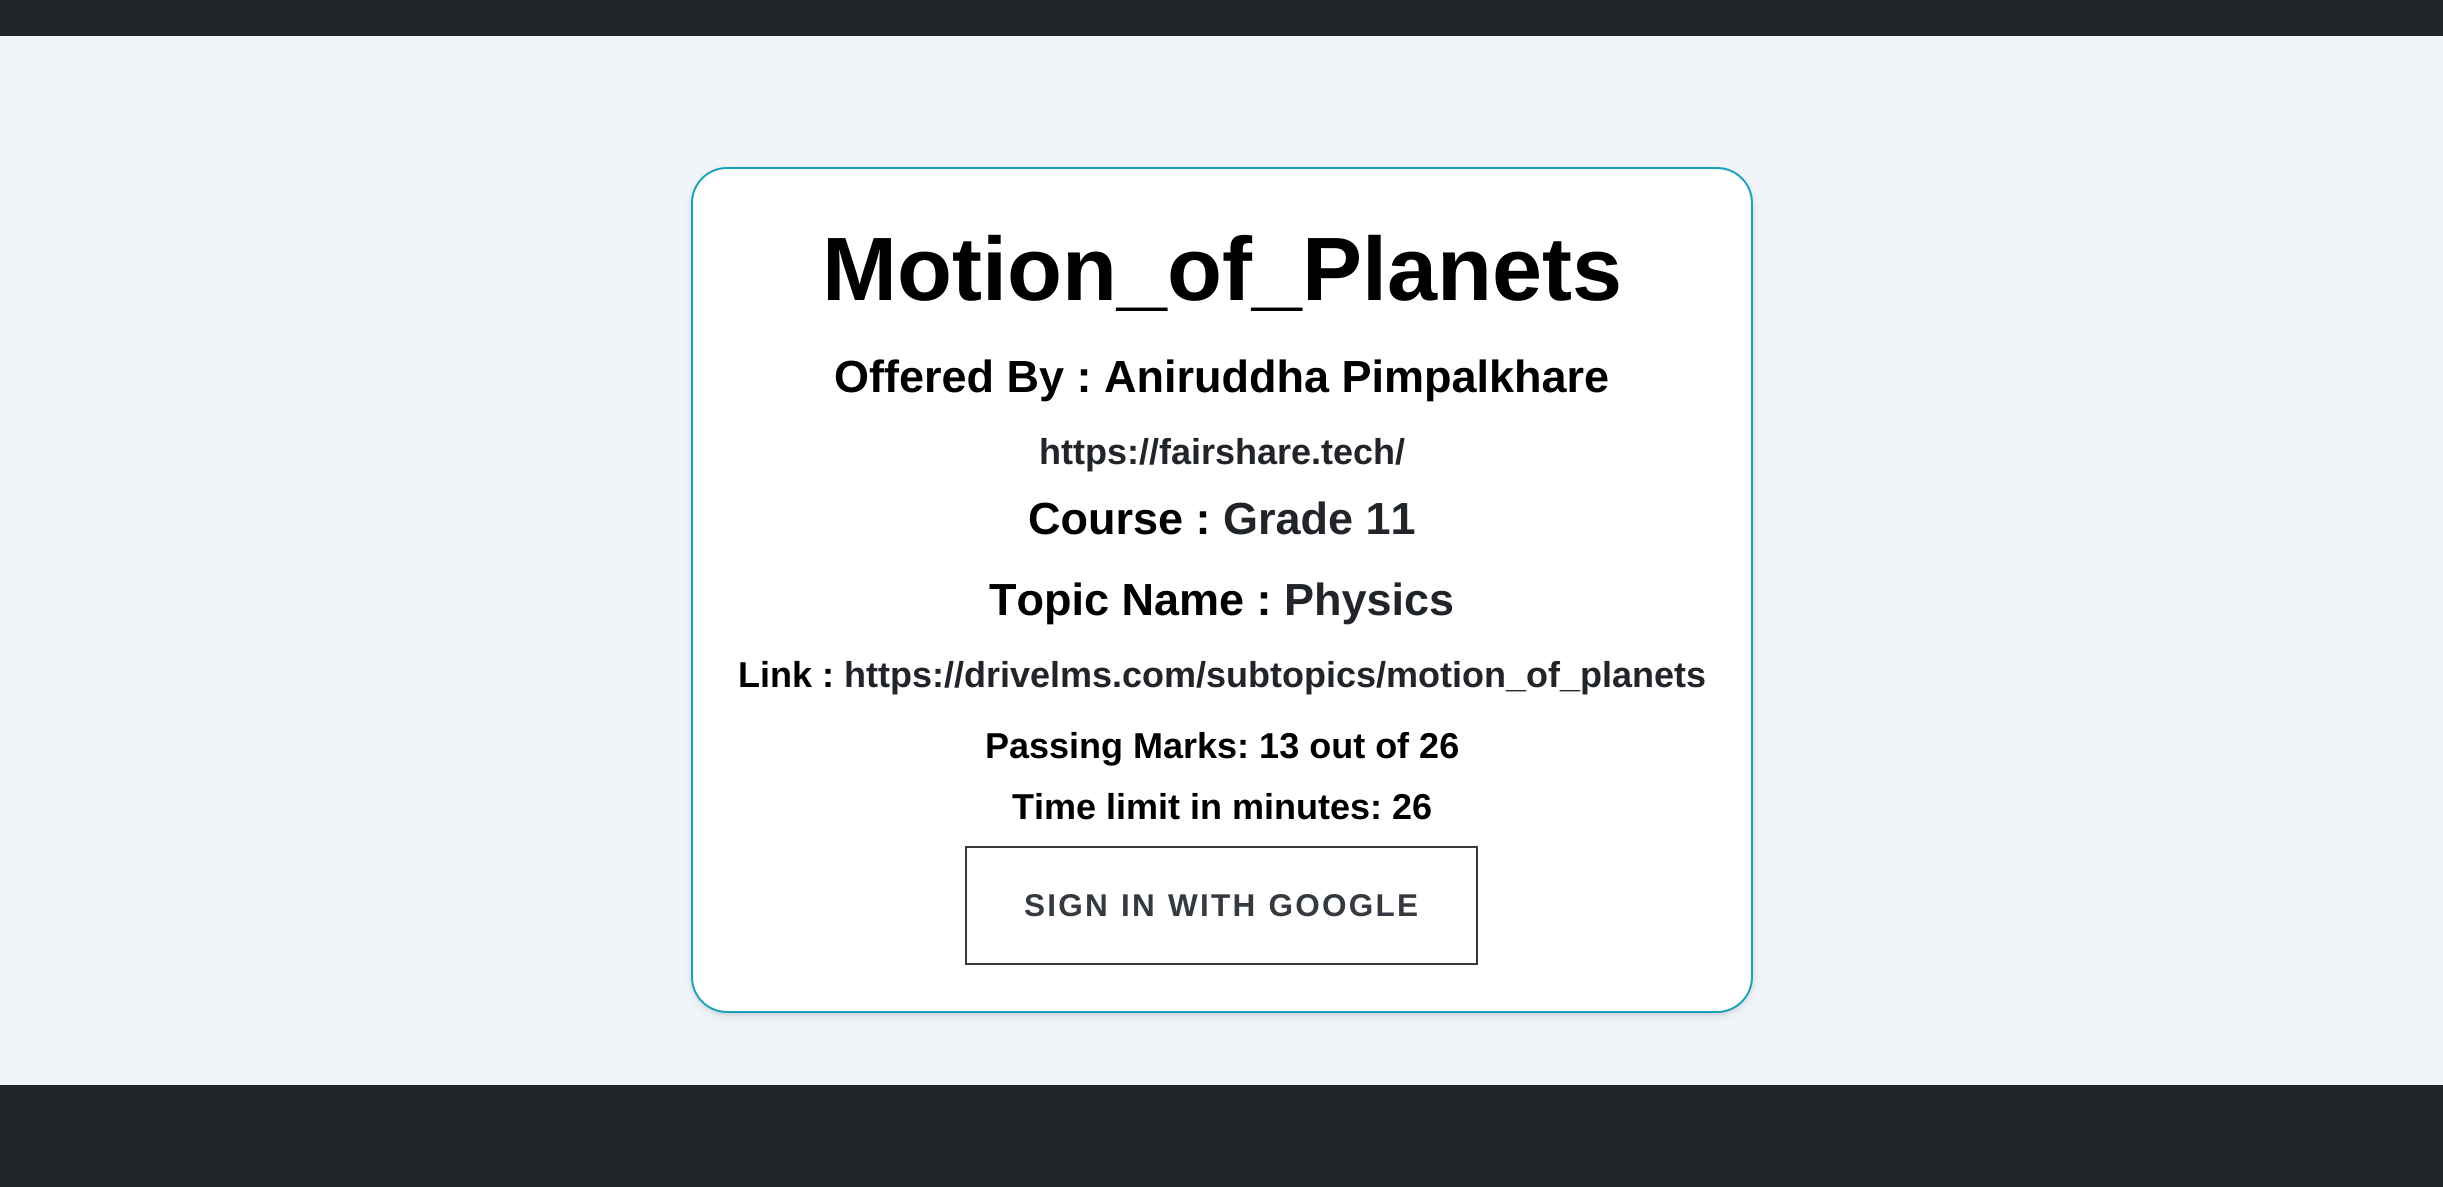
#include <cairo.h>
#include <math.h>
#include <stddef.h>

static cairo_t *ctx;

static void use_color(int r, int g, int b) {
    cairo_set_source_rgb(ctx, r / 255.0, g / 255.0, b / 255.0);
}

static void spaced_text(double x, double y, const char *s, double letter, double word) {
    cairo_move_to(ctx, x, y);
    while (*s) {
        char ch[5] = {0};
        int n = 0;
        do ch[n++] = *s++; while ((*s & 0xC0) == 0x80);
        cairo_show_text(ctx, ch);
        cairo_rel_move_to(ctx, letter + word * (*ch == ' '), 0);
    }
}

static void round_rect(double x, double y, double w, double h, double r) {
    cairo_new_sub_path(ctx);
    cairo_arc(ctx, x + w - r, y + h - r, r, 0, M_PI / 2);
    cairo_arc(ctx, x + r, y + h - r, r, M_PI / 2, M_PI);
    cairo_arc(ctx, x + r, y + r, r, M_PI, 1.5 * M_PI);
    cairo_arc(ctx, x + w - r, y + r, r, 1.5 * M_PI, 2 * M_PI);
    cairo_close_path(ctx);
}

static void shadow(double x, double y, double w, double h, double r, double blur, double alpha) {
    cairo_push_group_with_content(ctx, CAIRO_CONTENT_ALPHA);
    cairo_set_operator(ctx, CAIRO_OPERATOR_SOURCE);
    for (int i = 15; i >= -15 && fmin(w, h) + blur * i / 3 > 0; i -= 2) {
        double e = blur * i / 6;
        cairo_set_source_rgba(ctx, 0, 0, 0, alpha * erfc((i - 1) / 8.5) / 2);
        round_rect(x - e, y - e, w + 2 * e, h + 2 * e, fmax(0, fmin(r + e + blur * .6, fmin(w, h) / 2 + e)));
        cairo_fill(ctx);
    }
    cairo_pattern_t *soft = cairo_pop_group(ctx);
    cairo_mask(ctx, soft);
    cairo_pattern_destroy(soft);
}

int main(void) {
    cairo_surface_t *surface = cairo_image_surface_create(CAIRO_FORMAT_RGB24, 2443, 1187);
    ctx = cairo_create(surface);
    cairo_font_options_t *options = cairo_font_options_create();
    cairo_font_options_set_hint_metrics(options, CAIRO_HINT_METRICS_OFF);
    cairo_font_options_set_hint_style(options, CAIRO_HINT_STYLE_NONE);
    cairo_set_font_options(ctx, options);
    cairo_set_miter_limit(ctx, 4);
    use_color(241, 245, 249);
    cairo_paint(ctx);
    use_color(33, 37, 41);
    cairo_rectangle(ctx, 0, 0, 2443, 36);
    cairo_fill(ctx);
    use_color(0, 0, 20);
    shadow(691, 169, 1062, 846, 36, 2, 0.08);
    shadow(691, 171, 1062, 846, 36, 4.5, 0.08);
    use_color(255, 255, 255);
    round_rect(692, 168, 1060, 844, 35);
    cairo_fill_preserve(ctx);
    use_color(23, 162, 184);
    cairo_stroke(ctx);
    cairo_select_font_face(ctx, "Liberation Sans", CAIRO_FONT_SLANT_NORMAL, CAIRO_FONT_WEIGHT_BOLD);
    cairo_set_font_size(ctx, 90);
    use_color(0, 0, 0);
    cairo_move_to(ctx, 822, 300);
    cairo_show_text(ctx, "Motion_of_Planets");
    cairo_set_font_size(ctx, 45);
    cairo_move_to(ctx, 834, 392);
    cairo_show_text(ctx, "Offered By : Aniruddha Pimpalkhare");
    cairo_set_font_size(ctx, 36);
    use_color(33, 37, 41);
    cairo_move_to(ctx, 1039, 464);
    cairo_show_text(ctx, "https://fairshare.tech/");
    cairo_set_font_size(ctx, 45);
    use_color(0, 0, 0);
    cairo_move_to(ctx, 1028, 534);
    cairo_show_text(ctx, "Course :");
    use_color(33, 37, 41);
    cairo_move_to(ctx, 1223, 534);
    cairo_show_text(ctx, "Grade 11");
    use_color(0, 0, 0);
    cairo_move_to(ctx, 989, 615);
    cairo_show_text(ctx, "Topic Name :");
    use_color(33, 37, 41);
    cairo_move_to(ctx, 1284, 615);
    cairo_show_text(ctx, "Physics");
    cairo_set_font_size(ctx, 36);
    use_color(0, 0, 0);
    cairo_move_to(ctx, 738, 687);
    cairo_show_text(ctx, "Link :");
    use_color(33, 37, 41);
    cairo_move_to(ctx, 844, 687);
    cairo_show_text(ctx, "https://drivelms.com/subtopics/motion_of_planets");
    use_color(0, 0, 0);
    cairo_move_to(ctx, 985, 758);
    cairo_show_text(ctx, "Passing Marks: 13 out of 26");
    cairo_move_to(ctx, 1012, 819);
    cairo_show_text(ctx, "Time limit in minutes: 26");
    cairo_rectangle(ctx, 966, 847, 511, 117);
    use_color(52, 58, 64);
    cairo_stroke(ctx);
    cairo_set_font_size(ctx, 31.5);
    spaced_text(1024, 916, "SIGN IN WITH GOOGLE", 2.25, 0);
    use_color(33, 37, 41);
    cairo_rectangle(ctx, 0, 1085, 2443, 102);
    cairo_fill(ctx);
    cairo_surface_write_to_png(surface, "result.png");
    cairo_font_options_destroy(options);
    cairo_destroy(ctx);
    cairo_surface_destroy(surface);
    return 0;
}
